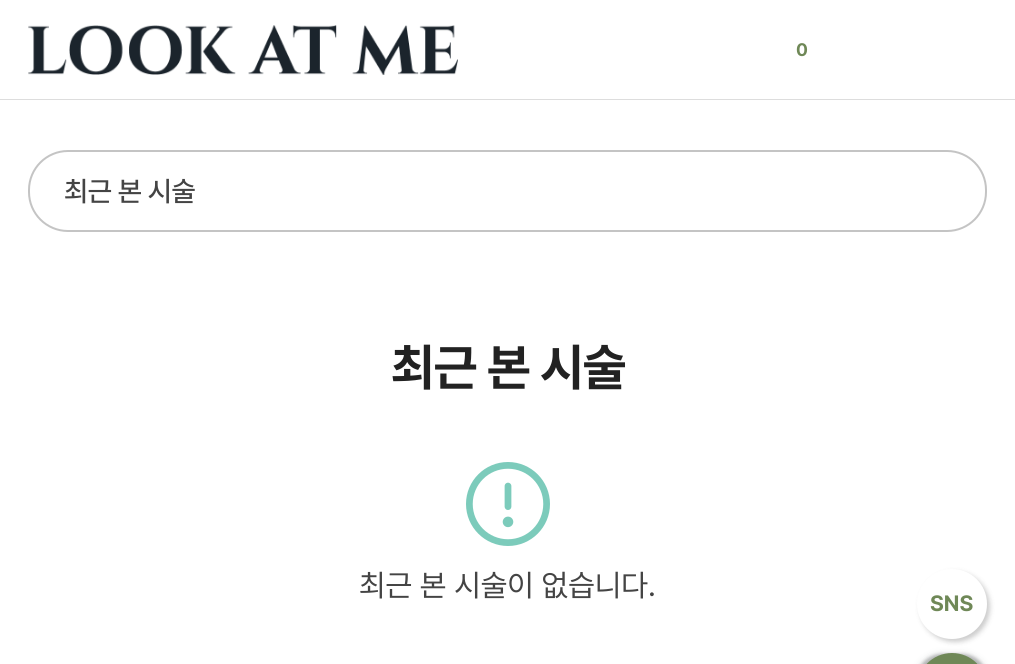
#include <cairo.h>
#include <math.h>
#include <stddef.h>

static cairo_t *ctx;

static void use_color(int r, int g, int b) {
    cairo_set_source_rgb(ctx, r / 255.0, g / 255.0, b / 255.0);
}

static void spaced_text(double x, double y, const char *s, double letter, double word) {
    cairo_move_to(ctx, x, y);
    while (*s) {
        char ch[5] = {0};
        int n = 0;
        do ch[n++] = *s++; while ((*s & 0xC0) == 0x80);
        cairo_show_text(ctx, ch);
        cairo_rel_move_to(ctx, letter + word * (*ch == ' '), 0);
    }
}

static void round_rect(double x, double y, double w, double h, double r) {
    cairo_new_sub_path(ctx);
    cairo_arc(ctx, x + w - r, y + h - r, r, 0, M_PI / 2);
    cairo_arc(ctx, x + r, y + h - r, r, M_PI / 2, M_PI);
    cairo_arc(ctx, x + r, y + r, r, M_PI, 1.5 * M_PI);
    cairo_arc(ctx, x + w - r, y + r, r, 1.5 * M_PI, 2 * M_PI);
    cairo_close_path(ctx);
}

static void shadow(double x, double y, double w, double h, double r, double blur, double alpha) {
    cairo_push_group_with_content(ctx, CAIRO_CONTENT_ALPHA);
    cairo_set_operator(ctx, CAIRO_OPERATOR_SOURCE);
    for (int i = 15; i >= -15 && fmin(w, h) + blur * i / 3 > 0; i -= 2) {
        double e = blur * i / 6;
        cairo_set_source_rgba(ctx, 0, 0, 0, alpha * erfc((i - 1) / 8.5) / 2);
        round_rect(x - e, y - e, w + 2 * e, h + 2 * e, fmax(0, fmin(r + e + blur * .6, fmin(w, h) / 2 + e)));
        cairo_fill(ctx);
    }
    cairo_pattern_t *soft = cairo_pop_group(ctx);
    cairo_mask(ctx, soft);
    cairo_pattern_destroy(soft);
}

static void picture(const char *path, double x, double y, double w, double h) {
    cairo_surface_t *image = cairo_image_surface_create_from_png(path);
    cairo_save(ctx);
    cairo_set_source_surface(ctx, image, x, y);
    cairo_rectangle(ctx, x, y, w, h);
    cairo_fill(ctx);
    cairo_restore(ctx);
    cairo_surface_destroy(image);
}

int main(void) {
    cairo_surface_t *surface = cairo_image_surface_create(CAIRO_FORMAT_RGB24, 1015, 664);
    ctx = cairo_create(surface);
    cairo_font_options_t *options = cairo_font_options_create();
    cairo_font_options_set_hint_metrics(options, CAIRO_HINT_METRICS_OFF);
    cairo_font_options_set_hint_style(options, CAIRO_HINT_STYLE_NONE);
    cairo_set_font_options(ctx, options);
    cairo_set_miter_limit(ctx, 4);
    use_color(255, 255, 255);
    cairo_paint(ctx);
    use_color(221, 221, 221);
    cairo_rectangle(ctx, 0, 99, 1015, 1);
    cairo_fill(ctx);
    picture("img1.png", 28, 25, 430, 50);
    cairo_select_font_face(ctx, "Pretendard", CAIRO_FONT_SLANT_NORMAL, CAIRO_FONT_WEIGHT_BOLD);
    cairo_set_font_size(ctx, 18);
    use_color(111, 136, 87);
    cairo_move_to(ctx, 796, 56);
    cairo_show_text(ctx, "0");
    round_rect(29, 151, 957, 80, 39);
    use_color(196, 196, 196);
    cairo_stroke(ctx);
    cairo_select_font_face(ctx, "Pretendard Medium", CAIRO_FONT_SLANT_NORMAL, CAIRO_FONT_WEIGHT_NORMAL);
    cairo_set_font_size(ctx, 28);
    use_color(68, 68, 68);
    spaced_text(64, 201, "최근 본 시술", -0.5, 0);
    cairo_select_font_face(ctx, "Pretendard", CAIRO_FONT_SLANT_NORMAL, CAIRO_FONT_WEIGHT_BOLD);
    cairo_set_font_size(ctx, 50.5);
    use_color(34, 34, 34);
    spaced_text(391, 385, "최근 본 시술", -1, 0);
    picture("img2.png", 466, 462, 84, 84);
    cairo_select_font_face(ctx, "Pretendard", CAIRO_FONT_SLANT_NORMAL, CAIRO_FONT_WEIGHT_NORMAL);
    cairo_set_font_size(ctx, 30.75);
    use_color(68, 68, 68);
    cairo_move_to(ctx, 359, 596);
    cairo_show_text(ctx, "최근 본 시술이 없습니다.");
    use_color(0, 0, 0);
    shadow(920, 572, 70, 70, 35, 2.5, 0.2);
    use_color(255, 255, 255);
    cairo_arc(ctx, 952, 604, 35, 0, 2 * M_PI);
    cairo_fill(ctx);
    cairo_select_font_face(ctx, "Pretendard", CAIRO_FONT_SLANT_NORMAL, CAIRO_FONT_WEIGHT_BOLD);
    cairo_set_font_size(ctx, 22);
    use_color(111, 136, 87);
    cairo_move_to(ctx, 930, 611);
    cairo_show_text(ctx, "SNS");
    use_color(60, 64, 67);
    shadow(914, 654, 76, 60, 38, 4, 0.15);
    shadow(917, 654, 70, 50, 35, 1.5, 0.3);
    use_color(111, 136, 87);
    round_rect(917, 653, 70, 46, 35);
    cairo_fill(ctx);
    cairo_surface_write_to_png(surface, "result.png");
    cairo_font_options_destroy(options);
    cairo_destroy(ctx);
    cairo_surface_destroy(surface);
    return 0;
}
